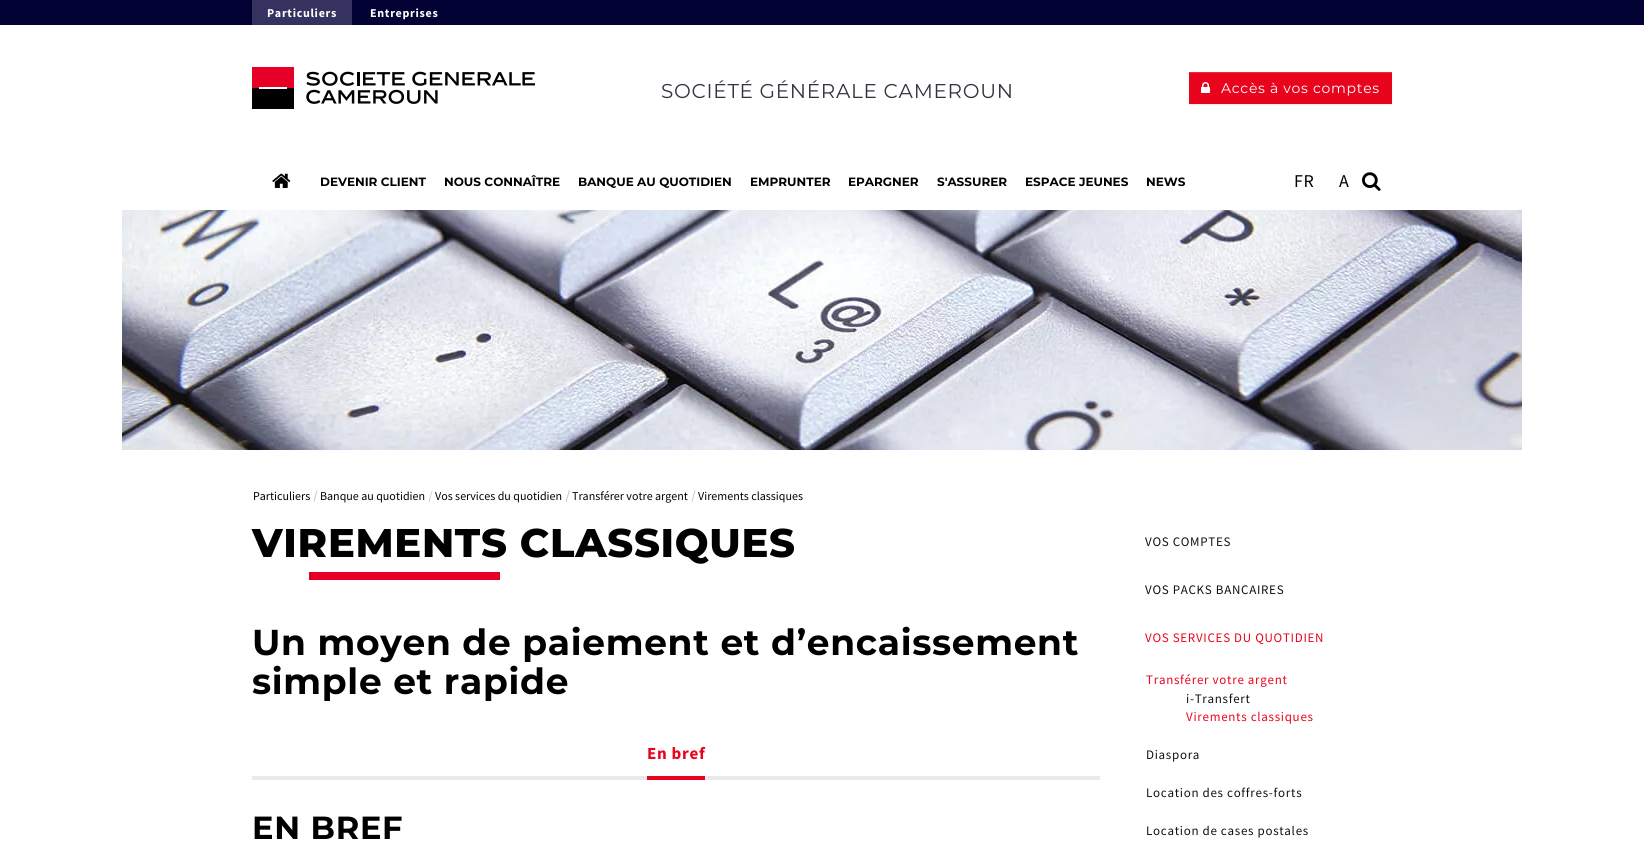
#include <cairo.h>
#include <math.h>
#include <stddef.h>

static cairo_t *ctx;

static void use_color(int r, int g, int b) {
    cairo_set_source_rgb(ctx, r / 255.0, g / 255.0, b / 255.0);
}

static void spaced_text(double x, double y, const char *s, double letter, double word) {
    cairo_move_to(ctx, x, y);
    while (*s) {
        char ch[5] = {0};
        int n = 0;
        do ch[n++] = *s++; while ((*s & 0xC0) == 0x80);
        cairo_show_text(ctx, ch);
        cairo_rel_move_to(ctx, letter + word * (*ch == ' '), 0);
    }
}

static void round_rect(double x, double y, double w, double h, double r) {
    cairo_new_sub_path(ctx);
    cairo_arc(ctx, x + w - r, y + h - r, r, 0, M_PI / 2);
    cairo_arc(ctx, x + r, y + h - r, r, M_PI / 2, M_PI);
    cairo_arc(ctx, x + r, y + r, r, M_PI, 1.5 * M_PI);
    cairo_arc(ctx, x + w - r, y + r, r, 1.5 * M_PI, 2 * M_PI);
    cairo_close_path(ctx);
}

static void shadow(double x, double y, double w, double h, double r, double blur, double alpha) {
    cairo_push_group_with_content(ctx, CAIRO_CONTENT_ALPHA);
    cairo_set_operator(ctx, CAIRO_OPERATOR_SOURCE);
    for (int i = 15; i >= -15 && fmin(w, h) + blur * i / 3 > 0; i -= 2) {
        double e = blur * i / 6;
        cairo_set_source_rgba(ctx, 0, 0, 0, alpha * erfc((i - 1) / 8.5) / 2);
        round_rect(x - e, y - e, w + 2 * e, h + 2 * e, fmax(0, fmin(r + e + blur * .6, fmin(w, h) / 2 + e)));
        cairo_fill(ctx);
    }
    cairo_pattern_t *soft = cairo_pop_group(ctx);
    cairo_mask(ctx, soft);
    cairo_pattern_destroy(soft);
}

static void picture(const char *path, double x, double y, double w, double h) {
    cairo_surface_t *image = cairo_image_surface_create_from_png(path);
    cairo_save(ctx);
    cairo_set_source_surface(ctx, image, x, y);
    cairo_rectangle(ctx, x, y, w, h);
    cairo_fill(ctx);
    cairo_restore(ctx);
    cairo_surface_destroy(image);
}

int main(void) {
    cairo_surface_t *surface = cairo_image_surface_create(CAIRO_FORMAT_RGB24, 1644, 841);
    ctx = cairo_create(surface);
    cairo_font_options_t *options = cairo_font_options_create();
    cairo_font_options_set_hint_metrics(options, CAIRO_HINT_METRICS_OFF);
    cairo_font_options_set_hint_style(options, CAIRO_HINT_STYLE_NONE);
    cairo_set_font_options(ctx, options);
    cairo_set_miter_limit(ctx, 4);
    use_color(255, 255, 255);
    cairo_paint(ctx);
    use_color(2, 2, 53);
    cairo_rectangle(ctx, 0, 0, 1644, 25);
    cairo_fill(ctx);
    use_color(53, 50, 95);
    cairo_rectangle(ctx, 252, 0, 100, 25);
    cairo_fill(ctx);
    cairo_select_font_face(ctx, "Source Sans Pro", CAIRO_FONT_SLANT_NORMAL, CAIRO_FONT_WEIGHT_BOLD);
    cairo_set_font_size(ctx, 12);
    use_color(255, 255, 255);
    spaced_text(267, 17, "Particuliers", 0.7, 0);
    spaced_text(370, 17, "Entreprises", 0.7, 0);
    picture("img1.png", 252, 67, 283, 42);
    cairo_select_font_face(ctx, "Montserrat", CAIRO_FONT_SLANT_NORMAL, CAIRO_FONT_WEIGHT_NORMAL);
    cairo_set_font_size(ctx, 20);
    use_color(48, 52, 62);
    spaced_text(661, 98, "SOCIÉTÉ GÉNÉRALE CAMEROUN", 0.7, 0);
    use_color(0, 0, 0);
    shadow(1189, 73, 203, 32, 0, 0.5, 0.07);
    use_color(233, 4, 30);
    cairo_rectangle(ctx, 1189, 73, 203, 31);
    cairo_fill(ctx);
    use_color(236, 42, 64);
    cairo_rectangle(ctx, 1189, 72, 203, 1);
    cairo_fill(ctx);
    picture("img2.png", 1201, 82, 9, 11);
    cairo_set_font_size(ctx, 14);
    use_color(255, 255, 255);
    spaced_text(1221, 93, "Accès à vos comptes", 0.7, 0);
    picture("img3.png", 272, 173, 19, 15);
    cairo_select_font_face(ctx, "Montserrat", CAIRO_FONT_SLANT_NORMAL, CAIRO_FONT_WEIGHT_BOLD);
    cairo_set_font_size(ctx, 12);
    use_color(0, 0, 0);
    cairo_move_to(ctx, 320, 186);
    cairo_show_text(ctx, "DEVENIR CLIENT");
    cairo_move_to(ctx, 444, 186);
    cairo_show_text(ctx, "NOUS CONNAÎTRE");
    cairo_move_to(ctx, 578, 186);
    cairo_show_text(ctx, "BANQUE AU QUOTIDIEN");
    cairo_move_to(ctx, 750, 186);
    cairo_show_text(ctx, "EMPRUNTER");
    cairo_move_to(ctx, 848, 186);
    cairo_show_text(ctx, "EPARGNER");
    cairo_move_to(ctx, 937, 186);
    cairo_show_text(ctx, "S'ASSURER");
    cairo_move_to(ctx, 1025, 186);
    cairo_show_text(ctx, "ESPACE JEUNES");
    cairo_move_to(ctx, 1146, 186);
    cairo_show_text(ctx, "NEWS");
    cairo_select_font_face(ctx, "Source Sans Pro", CAIRO_FONT_SLANT_NORMAL, CAIRO_FONT_WEIGHT_NORMAL);
    cairo_set_font_size(ctx, 18);
    spaced_text(1294, 187, "FR", 0.7, 0);
    spaced_text(1339, 187, "A", 0.7, 0);
    picture("img4.png", 1362, 172, 19, 19);
    picture("img5.png", 122, 210, 1400, 240);
    cairo_set_font_size(ctx, 12);
    cairo_move_to(ctx, 253, 500);
    cairo_show_text(ctx, "Particuliers");
    use_color(204, 204, 204);
    cairo_new_path(ctx);
    cairo_move_to(ctx, 316.5, 490);
    cairo_line_to(ctx, 317.5, 490.5);
    cairo_line_to(ctx, 314.5, 502);
    cairo_line_to(ctx, 313.5, 501.5);
    cairo_close_path(ctx);
    cairo_fill(ctx);
    use_color(0, 0, 0);
    cairo_move_to(ctx, 320, 500);
    cairo_show_text(ctx, "Banque au quotidien");
    use_color(204, 204, 204);
    cairo_new_path(ctx);
    cairo_move_to(ctx, 432, 490);
    cairo_line_to(ctx, 432.5, 490.5);
    cairo_line_to(ctx, 429.5, 502);
    cairo_line_to(ctx, 428.5, 501.5);
    cairo_close_path(ctx);
    cairo_fill(ctx);
    use_color(0, 0, 0);
    cairo_move_to(ctx, 435, 500);
    cairo_show_text(ctx, "Vos services du quotidien");
    use_color(204, 204, 204);
    cairo_new_path(ctx);
    cairo_move_to(ctx, 569, 490);
    cairo_line_to(ctx, 570, 490.5);
    cairo_line_to(ctx, 566.5, 502);
    cairo_line_to(ctx, 565.5, 501.5);
    cairo_close_path(ctx);
    cairo_fill(ctx);
    use_color(0, 0, 0);
    cairo_move_to(ctx, 572, 500);
    cairo_show_text(ctx, "Transférer votre argent");
    use_color(204, 204, 204);
    cairo_new_path(ctx);
    cairo_move_to(ctx, 694.5, 490);
    cairo_line_to(ctx, 695.5, 490.5);
    cairo_line_to(ctx, 692.5, 502);
    cairo_line_to(ctx, 691.5, 501.5);
    cairo_close_path(ctx);
    cairo_fill(ctx);
    use_color(0, 0, 0);
    cairo_move_to(ctx, 698, 500);
    cairo_show_text(ctx, "Virements classiques");
    cairo_select_font_face(ctx, "Montserrat ExtraBold", CAIRO_FONT_SLANT_NORMAL, CAIRO_FONT_WEIGHT_NORMAL);
    cairo_set_font_size(ctx, 40);
    spaced_text(252, 557, "VIREMENTS CLASSIQUES", 0.7, 0);
    use_color(230, 0, 40);
    cairo_rectangle(ctx, 309, 572, 191, 8);
    cairo_fill(ctx);
    cairo_select_font_face(ctx, "Montserrat", CAIRO_FONT_SLANT_NORMAL, CAIRO_FONT_WEIGHT_BOLD);
    cairo_set_font_size(ctx, 36);
    use_color(0, 0, 0);
    spaced_text(252, 655, "Un moyen de paiement et d’encaissement", 0.7, 0);
    spaced_text(252, 694, "simple et rapide", 0.7, 0);
    use_color(233, 234, 233);
    cairo_rectangle(ctx, 252, 776, 848, 4);
    cairo_fill(ctx);
    use_color(233, 4, 30);
    cairo_rectangle(ctx, 647, 776, 58, 4);
    cairo_fill(ctx);
    cairo_select_font_face(ctx, "Source Sans Pro", CAIRO_FONT_SLANT_NORMAL, CAIRO_FONT_WEIGHT_BOLD);
    cairo_set_font_size(ctx, 17);
    spaced_text(647, 759, "En bref", 0.7, 0);
    cairo_select_font_face(ctx, "Montserrat", CAIRO_FONT_SLANT_NORMAL, CAIRO_FONT_WEIGHT_BOLD);
    cairo_set_font_size(ctx, 32);
    use_color(0, 0, 0);
    spaced_text(252, 839, "EN BREF", 0.7, 0);
    cairo_select_font_face(ctx, "Source Sans Pro", CAIRO_FONT_SLANT_NORMAL, CAIRO_FONT_WEIGHT_NORMAL);
    cairo_set_font_size(ctx, 13);
    use_color(17, 17, 17);
    spaced_text(1145, 546, "VOS COMPTES", 0.7, 0);
    spaced_text(1145, 594, "VOS PACKS BANCAIRES", 0.7, 0);
    use_color(233, 4, 30);
    spaced_text(1145, 642, "VOS SERVICES DU QUOTIDIEN", 0.7, 0);
    spaced_text(1146, 684, "Transférer votre argent", 0.7, 0);
    use_color(17, 17, 17);
    spaced_text(1186, 703, "i-Transfert", 0.7, 0);
    use_color(233, 4, 30);
    spaced_text(1186, 721, "Virements classiques", 0.7, 0);
    use_color(17, 17, 17);
    spaced_text(1146, 759, "Diaspora", 0.7, 0);
    spaced_text(1146, 797, "Location des coffres-forts", 0.7, 0);
    spaced_text(1146, 835, "Location de cases postales", 0.7, 0);
    cairo_surface_write_to_png(surface, "result.png");
    cairo_font_options_destroy(options);
    cairo_destroy(ctx);
    cairo_surface_destroy(surface);
    return 0;
}
